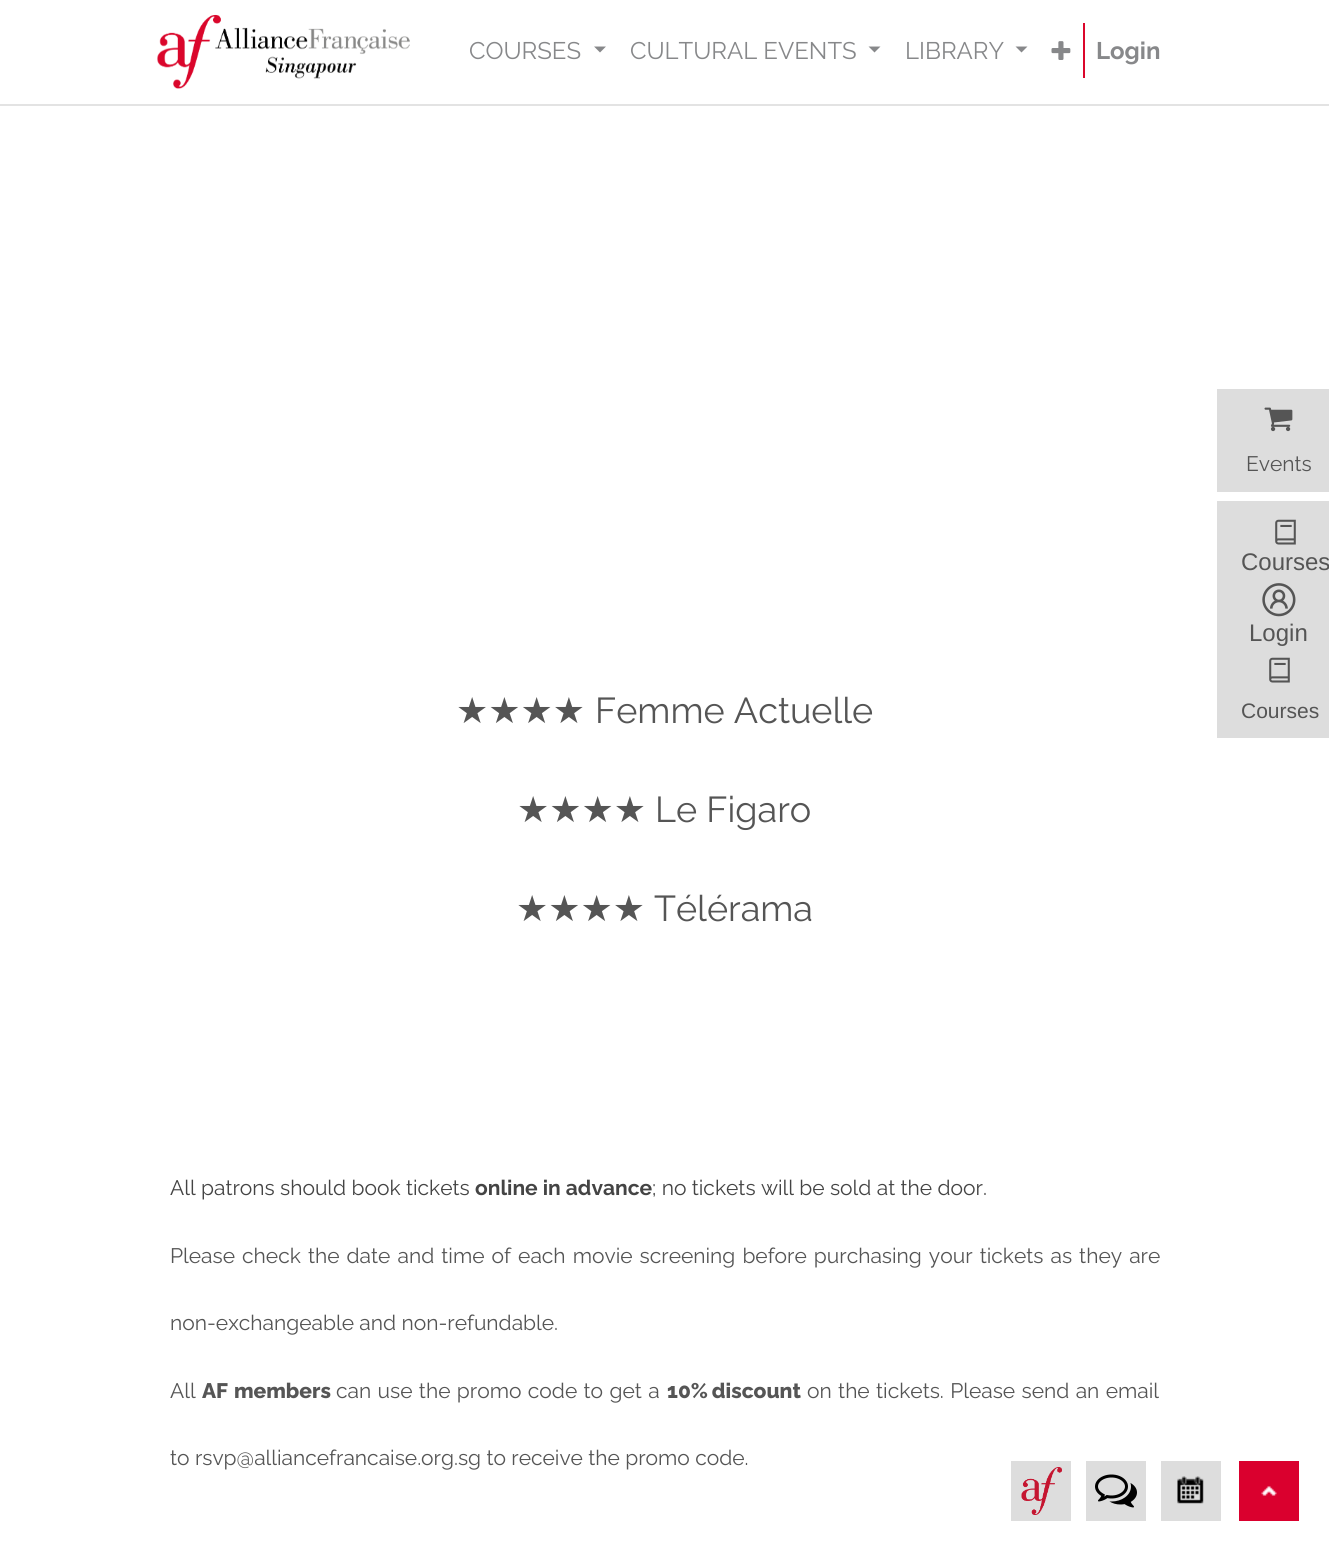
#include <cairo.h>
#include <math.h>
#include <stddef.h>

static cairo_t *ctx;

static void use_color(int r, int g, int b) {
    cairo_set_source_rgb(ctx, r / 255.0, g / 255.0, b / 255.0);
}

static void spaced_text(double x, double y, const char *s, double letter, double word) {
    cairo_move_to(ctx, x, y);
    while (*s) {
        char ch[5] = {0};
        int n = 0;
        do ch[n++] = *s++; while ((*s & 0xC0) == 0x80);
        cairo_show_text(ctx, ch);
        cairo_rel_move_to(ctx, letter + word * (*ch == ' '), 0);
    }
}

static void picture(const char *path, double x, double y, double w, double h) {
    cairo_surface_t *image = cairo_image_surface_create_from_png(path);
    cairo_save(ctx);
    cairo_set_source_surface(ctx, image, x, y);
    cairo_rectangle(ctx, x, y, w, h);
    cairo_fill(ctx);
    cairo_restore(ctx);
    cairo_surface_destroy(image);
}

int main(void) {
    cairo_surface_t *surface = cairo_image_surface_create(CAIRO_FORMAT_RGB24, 1329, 1553);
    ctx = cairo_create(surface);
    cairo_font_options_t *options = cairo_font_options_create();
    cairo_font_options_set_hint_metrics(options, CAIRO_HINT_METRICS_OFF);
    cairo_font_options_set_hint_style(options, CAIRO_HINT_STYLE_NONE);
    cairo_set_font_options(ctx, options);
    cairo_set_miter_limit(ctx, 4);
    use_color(255, 255, 255);
    cairo_paint(ctx);
    picture("img1.png", 157, 14, 253, 75);
    cairo_select_font_face(ctx, "Raleway Thin", CAIRO_FONT_SLANT_NORMAL, CAIRO_FONT_WEIGHT_NORMAL);
    cairo_set_font_size(ctx, 24);
    use_color(135, 136, 138);
    cairo_move_to(ctx, 469, 59);
    cairo_show_text(ctx, "COURSES");
    cairo_new_path(ctx);
    cairo_move_to(ctx, 594, 46.5);
    cairo_line_to(ctx, 606, 46.5);
    cairo_line_to(ctx, 600, 52.5);
    cairo_close_path(ctx);
    cairo_fill(ctx);
    cairo_move_to(ctx, 630, 59);
    cairo_show_text(ctx, "CULTURAL EVENTS");
    cairo_new_path(ctx);
    cairo_move_to(ctx, 868.5, 46.5);
    cairo_line_to(ctx, 880.5, 46.5);
    cairo_line_to(ctx, 874.5, 52.5);
    cairo_close_path(ctx);
    cairo_fill(ctx);
    cairo_move_to(ctx, 905, 59);
    cairo_show_text(ctx, "LIBRARY");
    cairo_new_path(ctx);
    cairo_move_to(ctx, 1015.5, 46.5);
    cairo_line_to(ctx, 1027.5, 46.5);
    cairo_line_to(ctx, 1021.5, 52.5);
    cairo_close_path(ctx);
    cairo_fill(ctx);
    picture("img2.png", 1051, 41, 20, 19);
    use_color(219, 6, 43);
    cairo_rectangle(ctx, 1083, 23, 2, 55);
    cairo_fill(ctx);
    cairo_select_font_face(ctx, "Raleway", CAIRO_FONT_SLANT_NORMAL, CAIRO_FONT_WEIGHT_BOLD);
    use_color(135, 136, 138);
    cairo_move_to(ctx, 1096, 59);
    cairo_show_text(ctx, "Login");
    use_color(221, 221, 221);
    cairo_rectangle(ctx, 1217, 389, 112, 103);
    cairo_fill(ctx);
    picture("img3.png", 1264, 407, 29, 25);
    cairo_select_font_face(ctx, "Raleway Thin", CAIRO_FONT_SLANT_NORMAL, CAIRO_FONT_WEIGHT_NORMAL);
    cairo_set_font_size(ctx, 21);
    use_color(85, 85, 85);
    cairo_move_to(ctx, 1246, 471);
    cairo_show_text(ctx, "Events");
    use_color(221, 221, 221);
    cairo_rectangle(ctx, 1217, 501, 112, 237);
    cairo_fill(ctx);
    picture("img4.png", 1275, 519, 21, 26);
    cairo_select_font_face(ctx, "Liberation Sans", CAIRO_FONT_SLANT_NORMAL, CAIRO_FONT_WEIGHT_NORMAL);
    cairo_set_font_size(ctx, 24);
    use_color(85, 85, 85);
    cairo_move_to(ctx, 1241, 570);
    cairo_show_text(ctx, "Courses");
    picture("img5.png", 1262, 583, 34, 34);
    cairo_move_to(ctx, 1249, 641);
    cairo_show_text(ctx, "Login");
    picture("img4.png", 1269, 657, 21, 26);
    cairo_set_font_size(ctx, 21);
    cairo_move_to(ctx, 1241, 718);
    cairo_show_text(ctx, "Courses");
    use_color(227, 227, 227);
    cairo_rectangle(ctx, 0, 104, 1329, 2);
    cairo_fill(ctx);
    cairo_select_font_face(ctx, "DejaVu Sans", CAIRO_FONT_SLANT_NORMAL, CAIRO_FONT_WEIGHT_NORMAL);
    cairo_set_font_size(ctx, 36);
    use_color(85, 85, 85);
    cairo_move_to(ctx, 456, 723);
    cairo_show_text(ctx, "★★★★");
    cairo_select_font_face(ctx, "Raleway Thin", CAIRO_FONT_SLANT_NORMAL, CAIRO_FONT_WEIGHT_NORMAL);
    cairo_move_to(ctx, 595, 723);
    cairo_show_text(ctx, "Femme Actuelle");
    cairo_select_font_face(ctx, "DejaVu Sans", CAIRO_FONT_SLANT_NORMAL, CAIRO_FONT_WEIGHT_NORMAL);
    cairo_move_to(ctx, 517, 822);
    cairo_show_text(ctx, "★★★★");
    cairo_select_font_face(ctx, "Raleway Thin", CAIRO_FONT_SLANT_NORMAL, CAIRO_FONT_WEIGHT_NORMAL);
    cairo_move_to(ctx, 655, 822);
    cairo_show_text(ctx, "Le Figaro");
    cairo_select_font_face(ctx, "DejaVu Sans", CAIRO_FONT_SLANT_NORMAL, CAIRO_FONT_WEIGHT_NORMAL);
    cairo_move_to(ctx, 516, 921);
    cairo_show_text(ctx, "★★★★");
    cairo_select_font_face(ctx, "Raleway Thin", CAIRO_FONT_SLANT_NORMAL, CAIRO_FONT_WEIGHT_NORMAL);
    cairo_move_to(ctx, 654, 921);
    cairo_show_text(ctx, "Télérama");
    cairo_set_font_size(ctx, 21);
    use_color(68, 68, 68);
    cairo_move_to(ctx, 170, 1195);
    cairo_show_text(ctx, "All patrons should book tickets");
    cairo_select_font_face(ctx, "Raleway", CAIRO_FONT_SLANT_NORMAL, CAIRO_FONT_WEIGHT_BOLD);
    cairo_move_to(ctx, 475, 1195);
    cairo_show_text(ctx, "online in advance");
    cairo_select_font_face(ctx, "Raleway Thin", CAIRO_FONT_SLANT_NORMAL, CAIRO_FONT_WEIGHT_NORMAL);
    cairo_move_to(ctx, 652, 1195);
    cairo_show_text(ctx, "; no tickets will be sold at the door.");
    use_color(85, 85, 85);
    spaced_text(170, 1263, "Please check the date and time of each movie screening before purchasing your tickets as they are", 0, 1.7);
    cairo_move_to(ctx, 170, 1330);
    cairo_show_text(ctx, "non-exchangeable and non-refundable.");
    cairo_move_to(ctx, 170, 1398);
    cairo_show_text(ctx, "All");
    cairo_select_font_face(ctx, "Raleway ExtraBold", CAIRO_FONT_SLANT_NORMAL, CAIRO_FONT_WEIGHT_NORMAL);
    spaced_text(202, 1398, "AF members", 0, 1);
    cairo_select_font_face(ctx, "Raleway Thin", CAIRO_FONT_SLANT_NORMAL, CAIRO_FONT_WEIGHT_NORMAL);
    spaced_text(336, 1398, "can use the promo code to get a", 0, 1);
    cairo_select_font_face(ctx, "Raleway ExtraBold", CAIRO_FONT_SLANT_NORMAL, CAIRO_FONT_WEIGHT_NORMAL);
    spaced_text(667, 1398, "10% discount", 0, -1);
    cairo_select_font_face(ctx, "Raleway Thin", CAIRO_FONT_SLANT_NORMAL, CAIRO_FONT_WEIGHT_NORMAL);
    spaced_text(807, 1398, "on the tickets. Please send an email", 0, 1);
    cairo_move_to(ctx, 170, 1465);
    cairo_show_text(ctx, "to rsvp@alliancefrancaise.org.sg to receive the promo code.");
    use_color(221, 221, 221);
    cairo_rectangle(ctx, 1011, 1461, 60, 60);
    cairo_fill(ctx);
    picture("img6.png", 1021, 1467, 41, 48);
    cairo_rectangle(ctx, 1086, 1461, 60, 60);
    cairo_fill(ctx);
    picture("img7.png", 1095, 1474, 42, 34);
    cairo_rectangle(ctx, 1161, 1461, 60, 60);
    cairo_fill(ctx);
    picture("img8.png", 1177, 1476, 27, 28);
    use_color(218, 0, 46);
    cairo_rectangle(ctx, 1239, 1461, 60, 60);
    cairo_fill(ctx);
    picture("img9.png", 1261, 1486, 16, 10);
    cairo_surface_write_to_png(surface, "result.png");
    cairo_font_options_destroy(options);
    cairo_destroy(ctx);
    cairo_surface_destroy(surface);
    return 0;
}
